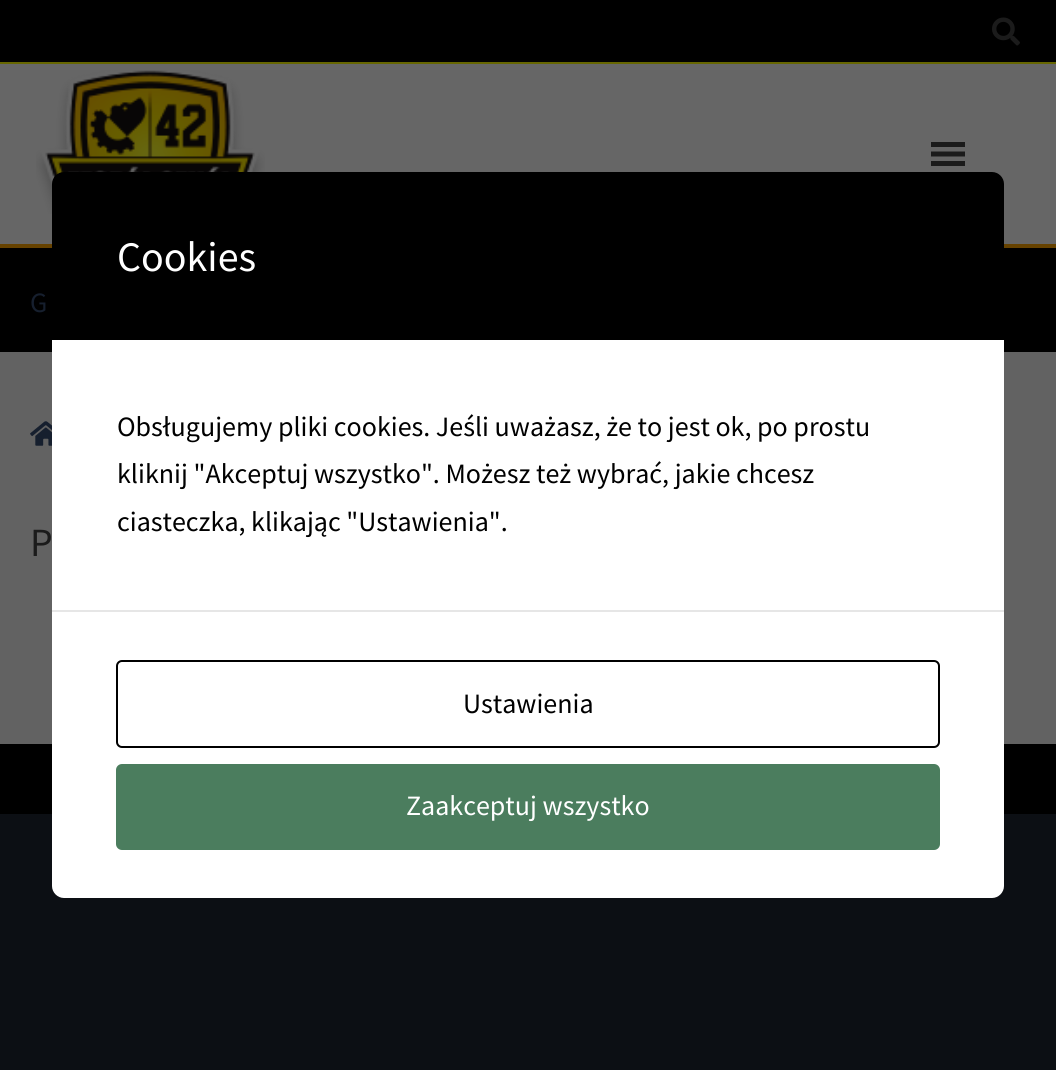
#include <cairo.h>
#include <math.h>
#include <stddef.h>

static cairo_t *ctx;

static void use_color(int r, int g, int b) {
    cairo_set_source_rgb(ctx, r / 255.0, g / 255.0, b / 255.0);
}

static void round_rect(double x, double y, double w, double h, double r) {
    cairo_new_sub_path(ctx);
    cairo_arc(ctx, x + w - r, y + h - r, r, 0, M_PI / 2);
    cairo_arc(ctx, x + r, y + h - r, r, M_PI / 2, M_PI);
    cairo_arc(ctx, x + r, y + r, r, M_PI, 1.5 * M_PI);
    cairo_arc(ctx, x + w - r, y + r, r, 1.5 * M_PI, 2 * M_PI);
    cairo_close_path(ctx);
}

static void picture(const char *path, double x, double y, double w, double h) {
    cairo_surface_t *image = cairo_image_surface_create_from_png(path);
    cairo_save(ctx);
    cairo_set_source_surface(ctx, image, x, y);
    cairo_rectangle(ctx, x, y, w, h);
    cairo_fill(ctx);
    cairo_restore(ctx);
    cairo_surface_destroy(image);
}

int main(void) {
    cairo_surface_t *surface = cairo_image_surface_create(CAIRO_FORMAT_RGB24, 1056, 1070);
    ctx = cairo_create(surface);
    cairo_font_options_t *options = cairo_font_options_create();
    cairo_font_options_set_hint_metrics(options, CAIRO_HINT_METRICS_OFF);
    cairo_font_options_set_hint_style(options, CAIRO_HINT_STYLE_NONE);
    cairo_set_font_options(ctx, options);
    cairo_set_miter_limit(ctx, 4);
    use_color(12, 15, 20);
    cairo_paint(ctx);
    use_color(98, 98, 98);
    cairo_rectangle(ctx, 0, 352, 1056, 392);
    cairo_fill(ctx);
    use_color(0, 0, 0);
    cairo_rectangle(ctx, 0, 0, 1056, 62);
    cairo_fill(ctx);
    use_color(102, 102, 0);
    cairo_rectangle(ctx, 0, 62, 1056, 2);
    cairo_fill(ctx);
    picture("img1.png", 992, 17, 28, 29);
    use_color(102, 102, 102);
    cairo_rectangle(ctx, 0, 64, 1056, 180);
    cairo_fill(ctx);
    use_color(102, 66, 0);
    cairo_rectangle(ctx, 0, 244, 1056, 4);
    cairo_fill(ctx);
    picture("img2.png", 36, 70, 229, 144);
    use_color(27, 27, 27);
    cairo_new_path(ctx);
    cairo_move_to(ctx, 931, 166);
    cairo_line_to(ctx, 965, 166);
    cairo_line_to(ctx, 965, 161);
    cairo_line_to(ctx, 931, 161);
    cairo_close_path(ctx);
    cairo_move_to(ctx, 931, 142);
    cairo_line_to(ctx, 931, 147);
    cairo_line_to(ctx, 965, 147);
    cairo_line_to(ctx, 965, 142);
    cairo_close_path(ctx);
    cairo_move_to(ctx, 931, 156.5);
    cairo_line_to(ctx, 965, 156.5);
    cairo_line_to(ctx, 965, 151.5);
    cairo_line_to(ctx, 931, 151.5);
    cairo_close_path(ctx);
    cairo_fill(ctx);
    use_color(0, 0, 0);
    cairo_rectangle(ctx, 0, 248, 1056, 104);
    cairo_fill(ctx);
    cairo_select_font_face(ctx, "Source Sans Pro", CAIRO_FONT_SLANT_NORMAL, CAIRO_FONT_WEIGHT_NORMAL);
    cairo_set_font_size(ctx, 28);
    use_color(22, 31, 46);
    cairo_move_to(ctx, 30, 312);
    cairo_show_text(ctx, "G");
    picture("img3.png", 30, 421, 22, 25);
    cairo_set_font_size(ctx, 40);
    use_color(27, 27, 27);
    cairo_move_to(ctx, 30, 556);
    cairo_show_text(ctx, "P");
    use_color(0, 0, 0);
    cairo_rectangle(ctx, 0, 744, 1056, 70);
    cairo_fill(ctx);
    cairo_new_path(ctx);
    cairo_move_to(ctx, 64, 172);
    cairo_line_to(ctx, 992, 172);
    cairo_curve_to(ctx, 998.5, 172, 1004, 177.5, 1004, 184);
    cairo_line_to(ctx, 1004, 340);
    cairo_line_to(ctx, 52, 340);
    cairo_line_to(ctx, 52, 184);
    cairo_curve_to(ctx, 52, 177.5, 57.5, 172, 64, 172);
    cairo_close_path(ctx);
    cairo_fill(ctx);
    cairo_set_font_size(ctx, 42);
    use_color(255, 255, 255);
    cairo_move_to(ctx, 117, 271);
    cairo_show_text(ctx, "Cookies");
    cairo_rectangle(ctx, 52, 340, 952, 270);
    cairo_fill(ctx);
    cairo_set_font_size(ctx, 28);
    use_color(0, 0, 0);
    cairo_move_to(ctx, 117, 436);
    cairo_show_text(ctx, "Obsługujemy pliki cookies. Jeśli uważasz, że to jest ok, po prostu");
    cairo_move_to(ctx, 117, 483);
    cairo_show_text(ctx, "kliknij \"Akceptuj wszystko\". Możesz też wybrać, jakie chcesz");
    cairo_move_to(ctx, 117, 531);
    cairo_show_text(ctx, "ciasteczka, klikając \"Ustawienia\".");
    use_color(255, 255, 255);
    cairo_new_path(ctx);
    cairo_move_to(ctx, 52, 610);
    cairo_line_to(ctx, 1004, 610);
    cairo_line_to(ctx, 1004, 886);
    cairo_curve_to(ctx, 1004, 892.5, 998.5, 898, 992, 898);
    cairo_line_to(ctx, 64, 898);
    cairo_curve_to(ctx, 57.5, 898, 52, 892.5, 52, 886);
    cairo_close_path(ctx);
    cairo_fill(ctx);
    use_color(230, 230, 230);
    cairo_rectangle(ctx, 52, 610, 952, 2);
    cairo_fill(ctx);
    round_rect(117, 661, 822, 86, 5);
    use_color(0, 0, 0);
    cairo_stroke(ctx);
    cairo_move_to(ctx, 463, 713);
    cairo_show_text(ctx, "Ustawienia");
    use_color(75, 125, 94);
    round_rect(117, 765, 822, 84, 5);
    cairo_fill_preserve(ctx);
    cairo_stroke(ctx);
    use_color(255, 255, 255);
    cairo_move_to(ctx, 406, 815);
    cairo_show_text(ctx, "Zaakceptuj wszystko");
    cairo_surface_write_to_png(surface, "result.png");
    cairo_font_options_destroy(options);
    cairo_destroy(ctx);
    cairo_surface_destroy(surface);
    return 0;
}
